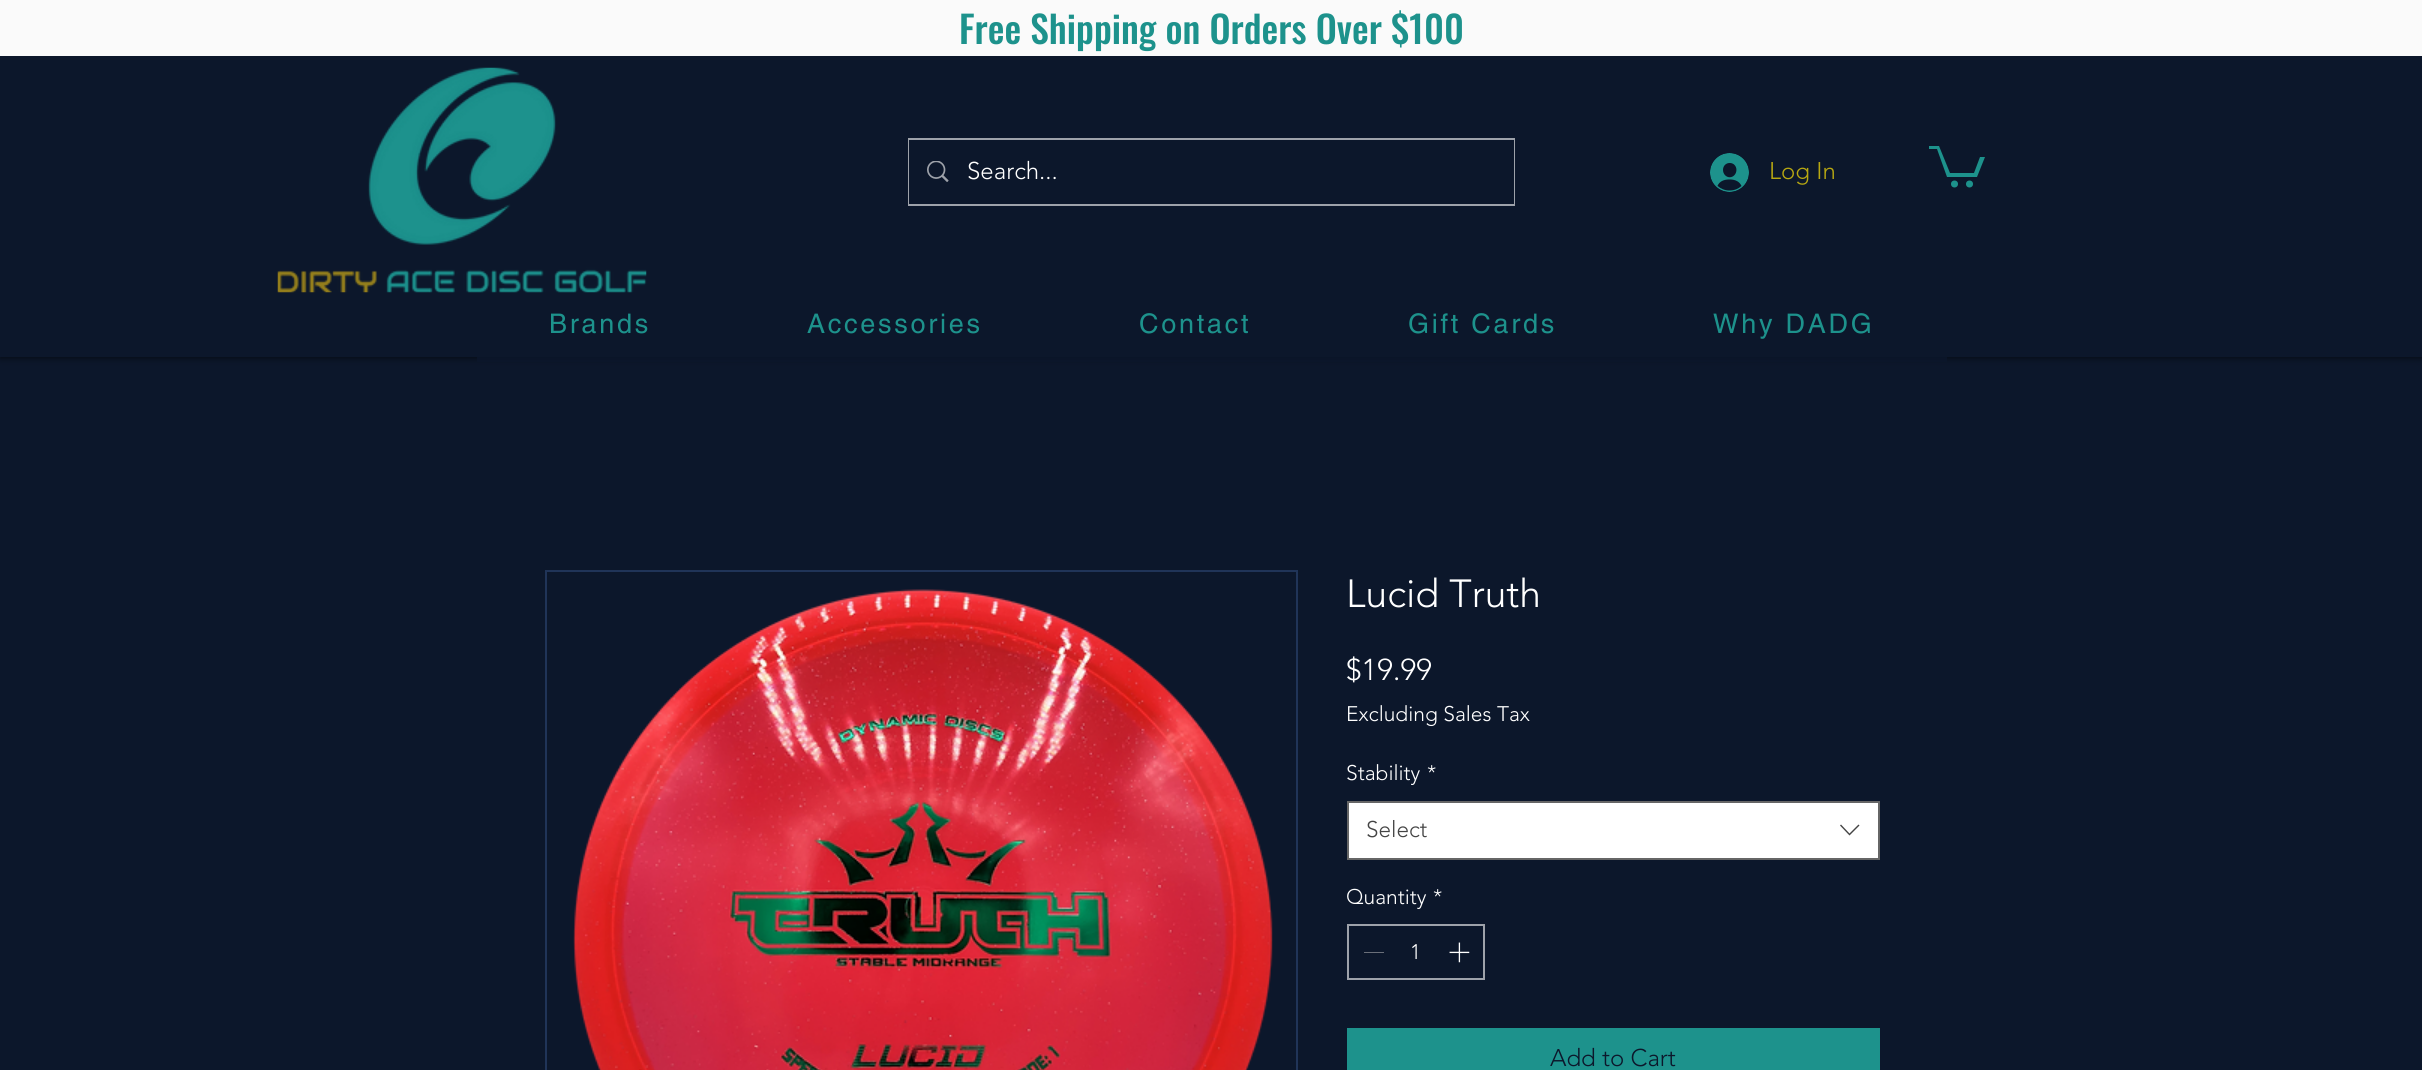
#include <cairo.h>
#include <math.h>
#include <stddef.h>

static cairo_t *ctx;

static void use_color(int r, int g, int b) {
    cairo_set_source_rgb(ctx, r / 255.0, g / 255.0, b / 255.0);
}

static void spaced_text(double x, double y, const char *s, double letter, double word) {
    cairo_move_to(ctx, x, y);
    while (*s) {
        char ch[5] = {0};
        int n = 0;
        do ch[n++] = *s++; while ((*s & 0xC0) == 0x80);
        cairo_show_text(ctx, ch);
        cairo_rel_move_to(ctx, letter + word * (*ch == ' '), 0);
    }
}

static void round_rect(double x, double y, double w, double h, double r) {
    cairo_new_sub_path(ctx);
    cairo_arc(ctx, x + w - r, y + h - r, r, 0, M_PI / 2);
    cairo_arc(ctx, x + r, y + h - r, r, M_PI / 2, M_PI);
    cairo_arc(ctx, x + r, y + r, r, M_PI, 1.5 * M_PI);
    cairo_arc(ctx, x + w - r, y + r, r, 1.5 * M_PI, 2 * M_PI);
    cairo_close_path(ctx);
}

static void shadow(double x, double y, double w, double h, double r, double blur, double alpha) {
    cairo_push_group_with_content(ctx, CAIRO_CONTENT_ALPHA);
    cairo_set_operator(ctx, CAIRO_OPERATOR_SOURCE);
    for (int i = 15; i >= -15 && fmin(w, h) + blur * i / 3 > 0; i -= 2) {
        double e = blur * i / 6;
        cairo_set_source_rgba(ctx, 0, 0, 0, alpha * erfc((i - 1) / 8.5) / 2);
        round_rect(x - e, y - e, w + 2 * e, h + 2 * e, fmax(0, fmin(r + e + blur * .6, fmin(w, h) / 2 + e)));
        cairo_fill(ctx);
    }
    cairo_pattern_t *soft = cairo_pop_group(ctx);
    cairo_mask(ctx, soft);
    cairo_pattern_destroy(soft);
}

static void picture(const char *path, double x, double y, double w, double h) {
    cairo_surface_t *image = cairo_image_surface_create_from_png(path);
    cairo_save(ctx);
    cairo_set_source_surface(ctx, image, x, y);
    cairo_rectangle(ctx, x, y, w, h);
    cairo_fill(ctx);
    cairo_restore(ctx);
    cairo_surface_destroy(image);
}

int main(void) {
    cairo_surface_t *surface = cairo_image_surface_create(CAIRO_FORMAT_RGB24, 2422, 1070);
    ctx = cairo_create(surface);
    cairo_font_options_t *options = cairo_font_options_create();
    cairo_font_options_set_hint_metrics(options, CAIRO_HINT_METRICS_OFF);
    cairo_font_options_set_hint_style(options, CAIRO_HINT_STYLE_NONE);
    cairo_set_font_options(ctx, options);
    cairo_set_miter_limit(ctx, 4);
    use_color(12, 23, 43);
    cairo_paint(ctx);
    use_color(0, 0, 0);
    shadow(0, 0, 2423, 357, 0, 4, 0.7);
    use_color(12, 23, 43);
    cairo_rectangle(ctx, 0, 56, 2422, 301);
    cairo_fill(ctx);
    use_color(250, 250, 250);
    cairo_rectangle(ctx, 0, 0, 2422, 56);
    cairo_fill(ctx);
    cairo_select_font_face(ctx, "Oswald Medium", CAIRO_FONT_SLANT_NORMAL, CAIRO_FONT_WEIGHT_NORMAL);
    cairo_set_font_size(ctx, 37.5);
    use_color(29, 146, 140);
    cairo_move_to(ctx, 959, 44);
    cairo_show_text(ctx, "Free Shipping on Orders Over $100");
    picture("img1.png", 277, 67, 370, 226);
    cairo_rectangle(ctx, 909, 139, 605, 66);
    use_color(158, 162, 170);
    cairo_stroke(ctx);
    use_color(12, 23, 43);
    cairo_rectangle(ctx, 909, 140, 605, 64);
    cairo_fill(ctx);
    picture("img2.png", 927, 161, 22, 21);
    cairo_select_font_face(ctx, "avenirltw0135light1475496 Light", CAIRO_FONT_SLANT_NORMAL, CAIRO_FONT_WEIGHT_NORMAL);
    cairo_set_font_size(ctx, 24);
    use_color(255, 255, 255);
    cairo_move_to(ctx, 967, 179);
    cairo_show_text(ctx, "Search...");
    picture("img3.png", 1710, 153, 39, 39);
    use_color(184, 168, 17);
    cairo_move_to(ctx, 1769, 179);
    cairo_show_text(ctx, "Log In");
    use_color(29, 146, 140);
    cairo_new_path(ctx);
    cairo_move_to(ctx, 1985, 157);
    cairo_line_to(ctx, 1977, 177);
    cairo_line_to(ctx, 1947, 177);
    cairo_line_to(ctx, 1937, 149);
    cairo_line_to(ctx, 1929, 149);
    cairo_line_to(ctx, 1929, 146);
    cairo_line_to(ctx, 1939, 146);
    cairo_line_to(ctx, 1950, 173);
    cairo_line_to(ctx, 1974, 173);
    cairo_line_to(ctx, 1980, 157);
    cairo_fill(ctx);
    cairo_arc(ctx, 1969.5, 184, 3.5, 0, 2 * M_PI);
    cairo_fill(ctx);
    cairo_arc(ctx, 1954.5, 184, 3.5, 0, 2 * M_PI);
    cairo_fill(ctx);
    cairo_select_font_face(ctx, "helvetica", CAIRO_FONT_SLANT_NORMAL, CAIRO_FONT_WEIGHT_NORMAL);
    cairo_set_font_size(ctx, 27);
    spaced_text(549, 333, "Brands", 2.75, 0);
    spaced_text(807, 333, "Accessories", 2.75, 0);
    spaced_text(1139, 333, "Contact", 2.75, 0);
    spaced_text(1408, 333, "Gift Cards", 2.75, 0);
    spaced_text(1713, 333, "Why DADG", 2.75, 0);
    cairo_set_source_rgba(ctx, 0.047, 0.09, 0.169, 0.82);
    cairo_rectangle(ctx, 477, 357, 1470, 5);
    cairo_fill(ctx);
    cairo_rectangle(ctx, 546, 571, 751, 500);
    use_color(32, 52, 88);
    cairo_stroke(ctx);
    picture("img4.png", 573, 589, 700, 481);
    cairo_select_font_face(ctx, "avenirltw0135light1475496 Light", CAIRO_FONT_SLANT_NORMAL, CAIRO_FONT_WEIGHT_NORMAL);
    cairo_set_font_size(ctx, 39);
    use_color(255, 255, 255);
    cairo_move_to(ctx, 1346, 607);
    cairo_show_text(ctx, "Lucid Truth");
    cairo_set_font_size(ctx, 30);
    cairo_move_to(ctx, 1346, 680);
    cairo_show_text(ctx, "$19.99");
    cairo_set_font_size(ctx, 21);
    cairo_move_to(ctx, 1346, 721);
    cairo_show_text(ctx, "Excluding Sales Tax");
    cairo_move_to(ctx, 1346, 780);
    cairo_show_text(ctx, "Stability");
    cairo_move_to(ctx, 1427, 780);
    cairo_show_text(ctx, "*");
    cairo_rectangle(ctx, 1348, 802, 531, 57);
    cairo_fill_preserve(ctx);
    use_color(102, 102, 102);
    cairo_stroke(ctx);
    cairo_set_font_size(ctx, 22.5);
    use_color(68, 68, 68);
    cairo_move_to(ctx, 1366, 837);
    cairo_show_text(ctx, "Select");
    cairo_set_fill_rule(ctx, CAIRO_FILL_RULE_EVEN_ODD);
    cairo_new_path(ctx);
    cairo_move_to(ctx, 1858.5, 824.5);
    cairo_line_to(ctx, 1859.5, 825.5);
    cairo_line_to(ctx, 1849.5, 835.5);
    cairo_line_to(ctx, 1840, 825.5);
    cairo_line_to(ctx, 1841, 824.5);
    cairo_line_to(ctx, 1849.5, 833.5);
    cairo_close_path(ctx);
    cairo_fill(ctx);
    cairo_set_font_size(ctx, 21);
    use_color(255, 255, 255);
    cairo_move_to(ctx, 1346, 904);
    cairo_show_text(ctx, "Quantity");
    cairo_move_to(ctx, 1433, 904);
    cairo_show_text(ctx, "*");
    cairo_rectangle(ctx, 1348, 925, 136, 54);
    use_color(158, 162, 170);
    cairo_stroke(ctx);
    use_color(106, 111, 121);
    cairo_rectangle(ctx, 1364, 952, 20, 1);
    cairo_fill(ctx);
    use_color(255, 255, 255);
    cairo_move_to(ctx, 1410, 959);
    cairo_show_text(ctx, "1");
    picture("img5.png", 1449, 942, 21, 21);
    use_color(29, 146, 140);
    cairo_rectangle(ctx, 1347, 1028, 533, 42);
    cairo_fill(ctx);
    cairo_set_font_size(ctx, 24);
    use_color(12, 23, 43);
    cairo_move_to(ctx, 1550, 1066);
    cairo_show_text(ctx, "Add to Cart");
    cairo_surface_write_to_png(surface, "result.png");
    cairo_font_options_destroy(options);
    cairo_destroy(ctx);
    cairo_surface_destroy(surface);
    return 0;
}
